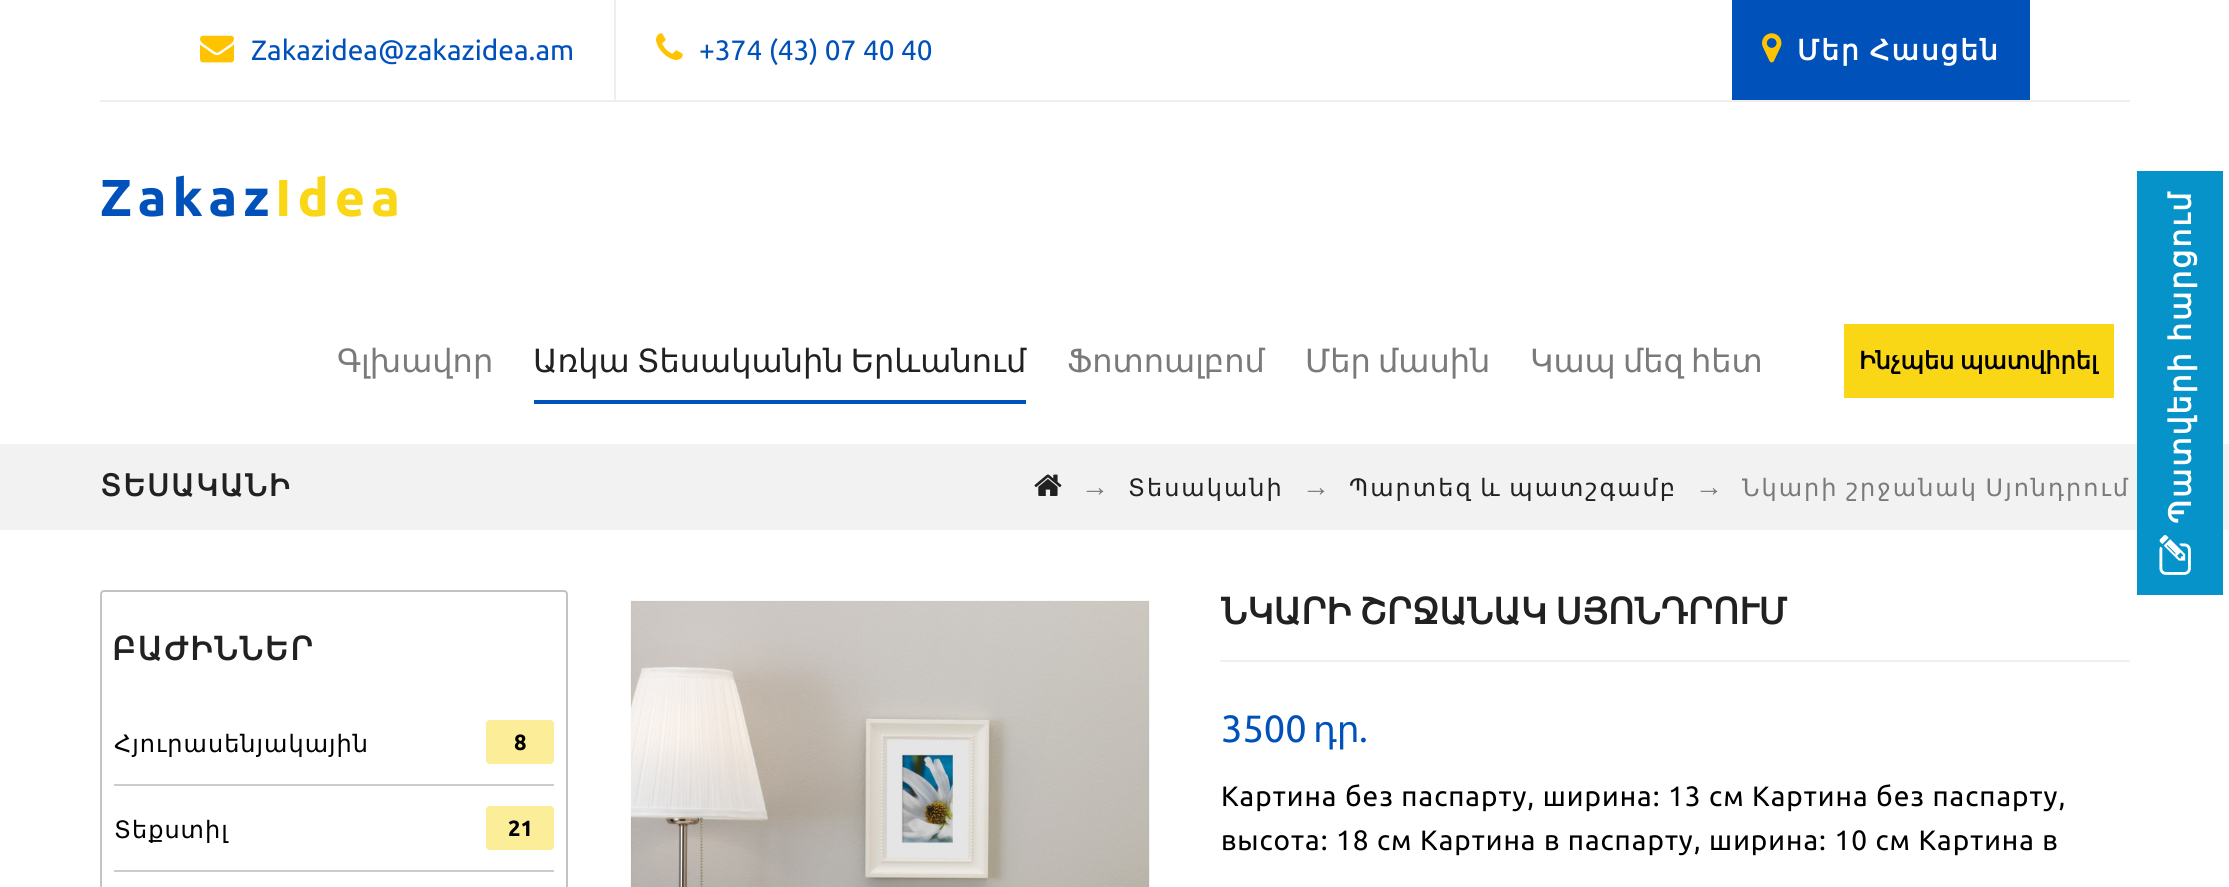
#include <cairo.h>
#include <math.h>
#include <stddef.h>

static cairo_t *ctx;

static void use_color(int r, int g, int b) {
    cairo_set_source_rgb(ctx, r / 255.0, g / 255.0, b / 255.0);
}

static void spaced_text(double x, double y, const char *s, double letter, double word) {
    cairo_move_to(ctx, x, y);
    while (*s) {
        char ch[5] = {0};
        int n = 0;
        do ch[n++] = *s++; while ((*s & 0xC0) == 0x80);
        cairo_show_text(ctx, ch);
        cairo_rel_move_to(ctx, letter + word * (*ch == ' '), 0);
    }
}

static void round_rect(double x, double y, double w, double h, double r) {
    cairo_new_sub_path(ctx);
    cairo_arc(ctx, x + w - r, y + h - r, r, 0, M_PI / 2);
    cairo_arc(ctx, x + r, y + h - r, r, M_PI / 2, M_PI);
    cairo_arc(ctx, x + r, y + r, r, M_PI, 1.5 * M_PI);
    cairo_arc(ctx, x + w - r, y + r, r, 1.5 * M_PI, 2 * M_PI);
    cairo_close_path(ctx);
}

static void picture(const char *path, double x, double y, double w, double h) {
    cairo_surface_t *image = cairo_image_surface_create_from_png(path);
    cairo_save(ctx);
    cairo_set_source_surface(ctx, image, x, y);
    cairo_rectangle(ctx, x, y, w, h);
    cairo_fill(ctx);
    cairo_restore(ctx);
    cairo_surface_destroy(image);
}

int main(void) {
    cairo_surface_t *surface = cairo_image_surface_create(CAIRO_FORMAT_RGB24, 2229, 887);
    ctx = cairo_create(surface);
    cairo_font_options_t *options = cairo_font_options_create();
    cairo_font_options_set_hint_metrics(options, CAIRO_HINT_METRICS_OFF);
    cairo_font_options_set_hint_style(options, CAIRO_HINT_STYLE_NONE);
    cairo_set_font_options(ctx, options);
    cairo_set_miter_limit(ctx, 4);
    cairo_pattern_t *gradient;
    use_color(255, 255, 255);
    cairo_paint(ctx);
    use_color(238, 238, 238);
    cairo_rectangle(ctx, 100, 100, 2030, 2);
    cairo_fill(ctx);
    picture("img1.png", 200, 35, 34, 28);
    cairo_select_font_face(ctx, "Ubuntu", CAIRO_FONT_SLANT_NORMAL, CAIRO_FONT_WEIGHT_NORMAL);
    cairo_set_font_size(ctx, 28);
    use_color(0, 81, 186);
    cairo_move_to(ctx, 251, 60);
    cairo_show_text(ctx, "Zakazidea@zakazidea.am");
    use_color(238, 238, 238);
    cairo_rectangle(ctx, 614, 0, 2, 100);
    cairo_fill(ctx);
    picture("img2.png", 656, 33, 27, 27);
    use_color(0, 81, 186);
    cairo_move_to(ctx, 699, 60);
    cairo_show_text(ctx, "+374 (43) 07 40 40");
    cairo_rectangle(ctx, 1732, 0, 298, 100);
    cairo_fill(ctx);
    picture("img3.png", 1762, 33, 20, 30);
    cairo_select_font_face(ctx, "DejaVu Sans", CAIRO_FONT_SLANT_NORMAL, CAIRO_FONT_WEIGHT_BOLD);
    use_color(255, 255, 255);
    spaced_text(1797, 60, "Մեր Հասցեն", 2, -2);
    cairo_select_font_face(ctx, "Ubuntu", CAIRO_FONT_SLANT_NORMAL, CAIRO_FONT_WEIGHT_BOLD);
    cairo_set_font_size(ctx, 52);
    use_color(0, 81, 186);
    spaced_text(100, 216, "Zakaz", 6, 0);
    use_color(249, 214, 22);
    spaced_text(275, 216, "Idea", 6, 0);
    cairo_select_font_face(ctx, "DejaVu Sans", CAIRO_FONT_SLANT_NORMAL, CAIRO_FONT_WEIGHT_NORMAL);
    cairo_set_font_size(ctx, 32);
    use_color(122, 122, 122);
    cairo_move_to(ctx, 337, 372);
    cairo_show_text(ctx, "Գլխավոր");
    use_color(33, 33, 33);
    spaced_text(533, 372, "Առկա Տեսականին Երևանում", 0, -3);
    use_color(0, 81, 186);
    cairo_rectangle(ctx, 534, 400, 492, 4);
    cairo_fill(ctx);
    use_color(122, 122, 122);
    cairo_move_to(ctx, 1067, 372);
    cairo_show_text(ctx, "Ֆոտոալբոմ");
    spaced_text(1305, 372, "Մեր մասին", 0, -3);
    spaced_text(1530, 372, "Կապ մեզ հետ", 0, -3);
    use_color(249, 214, 22);
    cairo_rectangle(ctx, 1844, 324, 270, 74);
    cairo_fill(ctx);
    cairo_select_font_face(ctx, "DejaVu Sans", CAIRO_FONT_SLANT_NORMAL, CAIRO_FONT_WEIGHT_BOLD);
    cairo_set_font_size(ctx, 24);
    use_color(0, 0, 0);
    spaced_text(1859, 369, "Ինչպես պատվիրել", 0, -2);
    use_color(242, 242, 242);
    cairo_rectangle(ctx, 0, 444, 2229, 86);
    cairo_fill(ctx);
    gradient = cairo_pattern_create_linear(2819, -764, 1799, 257);
    cairo_pattern_add_color_stop_rgba(gradient, 0, 0, 0.678, 0.937, 1);
    cairo_pattern_add_color_stop_rgba(gradient, 0.33, 0, 0.678, 0.937, 1);
    cairo_pattern_add_color_stop_rgba(gradient, 0.67, 0.024, 0.576, 0.788, 1);
    cairo_pattern_add_color_stop_rgba(gradient, 1, 0.024, 0.576, 0.788, 1);
    cairo_set_source(ctx, gradient);
    cairo_pattern_destroy(gradient);
    cairo_rectangle(ctx, 2137, 171, 86, 424);
    cairo_fill(ctx);
    cairo_set_font_size(ctx, 30);
    use_color(255, 255, 255);
    cairo_save(ctx);
    cairo_translate(ctx, 2191, 524);
    cairo_rotate(ctx, -90 * M_PI / 180);
    spaced_text(0, 0, "Պատվերի հարցում", 2, -2);
    cairo_restore(ctx);
    picture("img4.png", 2159, 535, 32, 40);
    use_color(33, 33, 33);
    spaced_text(100, 496, "ՏԵՍԱԿԱՆԻ", 2, 0);
    picture("img5.png", 1034, 474, 28, 22);
    cairo_select_font_face(ctx, "Liberation Sans", CAIRO_FONT_SLANT_NORMAL, CAIRO_FONT_WEIGHT_NORMAL);
    cairo_set_font_size(ctx, 28);
    use_color(122, 122, 122);
    spaced_text(1081, 496, "→", 2, 0);
    cairo_select_font_face(ctx, "DejaVu Sans", CAIRO_FONT_SLANT_NORMAL, CAIRO_FONT_WEIGHT_NORMAL);
    cairo_set_font_size(ctx, 24);
    use_color(33, 33, 33);
    spaced_text(1128, 496, "Տեսականի", 2, 0);
    cairo_select_font_face(ctx, "Liberation Sans", CAIRO_FONT_SLANT_NORMAL, CAIRO_FONT_WEIGHT_NORMAL);
    cairo_set_font_size(ctx, 28);
    use_color(122, 122, 122);
    spaced_text(1302, 496, "→", 2, 0);
    cairo_select_font_face(ctx, "DejaVu Sans", CAIRO_FONT_SLANT_NORMAL, CAIRO_FONT_WEIGHT_NORMAL);
    cairo_set_font_size(ctx, 24);
    use_color(33, 33, 33);
    spaced_text(1349, 496, "Պարտեզ և պատշգամբ", 2, -2);
    cairo_select_font_face(ctx, "Liberation Sans", CAIRO_FONT_SLANT_NORMAL, CAIRO_FONT_WEIGHT_NORMAL);
    cairo_set_font_size(ctx, 28);
    use_color(122, 122, 122);
    spaced_text(1695, 496, "→", 2, 0);
    cairo_select_font_face(ctx, "DejaVu Sans", CAIRO_FONT_SLANT_NORMAL, CAIRO_FONT_WEIGHT_NORMAL);
    cairo_set_font_size(ctx, 24);
    spaced_text(1742, 496, "Նկարի շրջանակ Սյոնդրում", 2, -2);
    round_rect(101, 591, 466, 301, 3);
    use_color(195, 195, 195);
    cairo_stroke(ctx);
    cairo_select_font_face(ctx, "DejaVu Sans", CAIRO_FONT_SLANT_NORMAL, CAIRO_FONT_WEIGHT_BOLD);
    cairo_set_font_size(ctx, 32);
    use_color(33, 33, 33);
    spaced_text(112, 660, "ԲԱԺԻՆՆԵՐ", 2, 0);
    use_color(204, 204, 204);
    cairo_rectangle(ctx, 114, 784, 440, 2);
    cairo_fill(ctx);
    cairo_select_font_face(ctx, "DejaVu Sans", CAIRO_FONT_SLANT_NORMAL, CAIRO_FONT_WEIGHT_NORMAL);
    cairo_set_font_size(ctx, 24);
    use_color(0, 0, 0);
    spaced_text(114, 752, "Հյուրասենյակային", 1, 0);
    use_color(252, 237, 152);
    round_rect(486, 720, 68, 44, 4);
    cairo_fill(ctx);
    cairo_select_font_face(ctx, "Ubuntu", CAIRO_FONT_SLANT_NORMAL, CAIRO_FONT_WEIGHT_BOLD);
    cairo_set_font_size(ctx, 22);
    use_color(0, 0, 0);
    cairo_move_to(ctx, 514, 750);
    cairo_show_text(ctx, "8");
    use_color(204, 204, 204);
    cairo_rectangle(ctx, 114, 870, 440, 2);
    cairo_fill(ctx);
    cairo_select_font_face(ctx, "DejaVu Sans", CAIRO_FONT_SLANT_NORMAL, CAIRO_FONT_WEIGHT_NORMAL);
    cairo_set_font_size(ctx, 24);
    use_color(0, 0, 0);
    spaced_text(114, 838, "Տեքստիլ", 1, 0);
    use_color(252, 237, 152);
    round_rect(486, 806, 68, 44, 4);
    cairo_fill(ctx);
    cairo_select_font_face(ctx, "Ubuntu", CAIRO_FONT_SLANT_NORMAL, CAIRO_FONT_WEIGHT_BOLD);
    cairo_set_font_size(ctx, 22);
    use_color(0, 0, 0);
    cairo_move_to(ctx, 508, 836);
    cairo_show_text(ctx, "21");
    picture("img6.png", 630, 600, 520, 287);
    use_color(240, 240, 240);
    cairo_rectangle(ctx, 1220, 660, 910, 2);
    cairo_fill(ctx);
    cairo_select_font_face(ctx, "DejaVu Sans", CAIRO_FONT_SLANT_NORMAL, CAIRO_FONT_WEIGHT_BOLD);
    cairo_set_font_size(ctx, 36);
    use_color(33, 33, 33);
    spaced_text(1221, 624, "ՆԿԱՐԻ ՇՐՋԱՆԱԿ ՍՅՈՆԴՐՈՒՄ", 0, -3);
    cairo_select_font_face(ctx, "Ubuntu", CAIRO_FONT_SLANT_NORMAL, CAIRO_FONT_WEIGHT_NORMAL);
    cairo_set_font_size(ctx, 38);
    use_color(0, 81, 186);
    cairo_move_to(ctx, 1221, 742);
    cairo_show_text(ctx, "3500");
    cairo_select_font_face(ctx, "DejaVu Sans", CAIRO_FONT_SLANT_NORMAL, CAIRO_FONT_WEIGHT_NORMAL);
    cairo_set_font_size(ctx, 36);
    cairo_move_to(ctx, 1313, 742);
    cairo_show_text(ctx, "դր");
    cairo_select_font_face(ctx, "Ubuntu", CAIRO_FONT_SLANT_NORMAL, CAIRO_FONT_WEIGHT_NORMAL);
    cairo_move_to(ctx, 1359, 742);
    cairo_show_text(ctx, ".");
    cairo_set_font_size(ctx, 28);
    use_color(0, 0, 0);
    spaced_text(1221, 806, "Картина без паспарту, ширина: 13 см Картина без паспарту,", 1, 0);
    spaced_text(1221, 850, "высота: 18 см Картина в паспарту, ширина: 10 см Картина в", 1, 0);
    cairo_surface_write_to_png(surface, "result.png");
    cairo_font_options_destroy(options);
    cairo_destroy(ctx);
    cairo_surface_destroy(surface);
    return 0;
}
